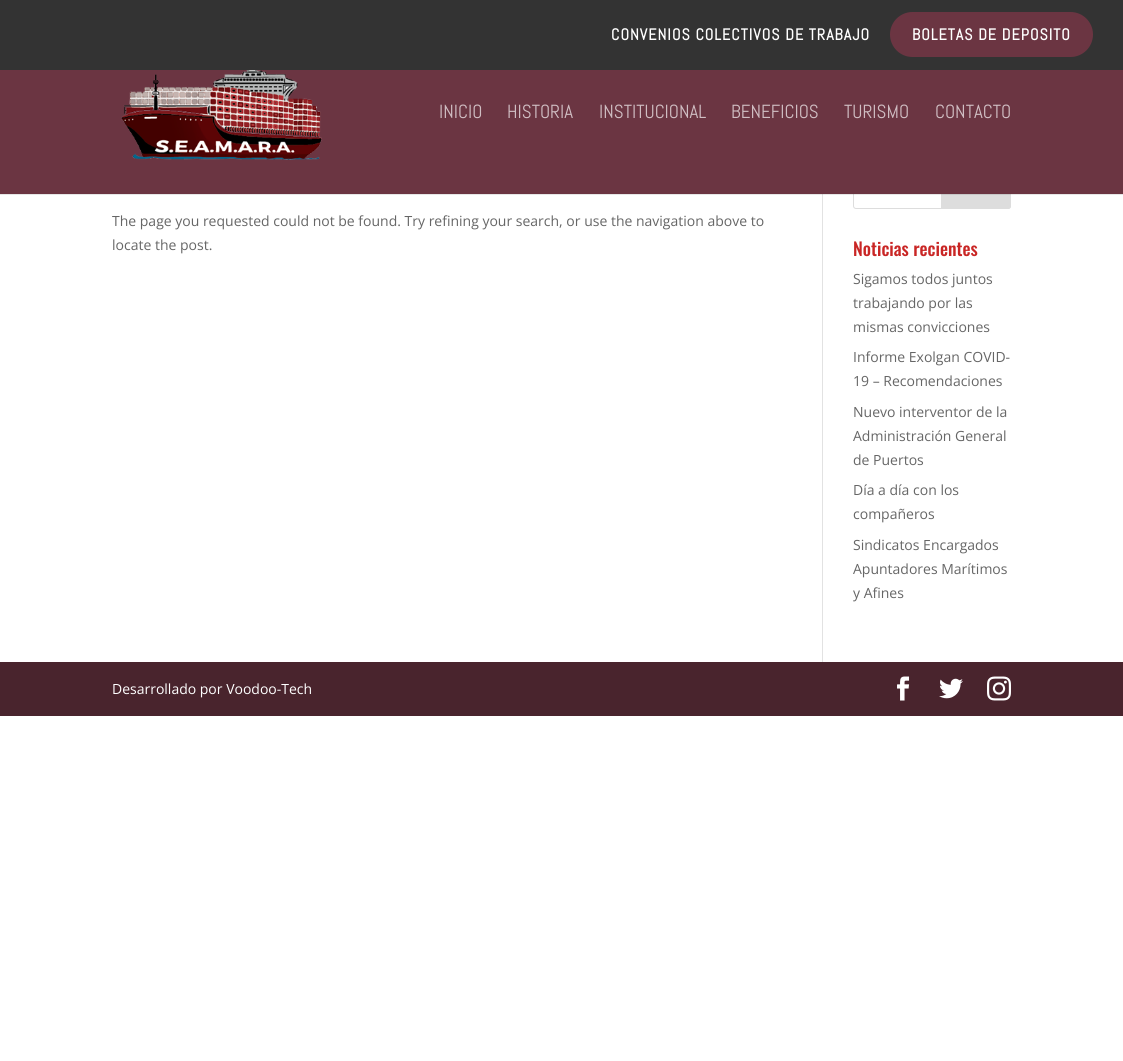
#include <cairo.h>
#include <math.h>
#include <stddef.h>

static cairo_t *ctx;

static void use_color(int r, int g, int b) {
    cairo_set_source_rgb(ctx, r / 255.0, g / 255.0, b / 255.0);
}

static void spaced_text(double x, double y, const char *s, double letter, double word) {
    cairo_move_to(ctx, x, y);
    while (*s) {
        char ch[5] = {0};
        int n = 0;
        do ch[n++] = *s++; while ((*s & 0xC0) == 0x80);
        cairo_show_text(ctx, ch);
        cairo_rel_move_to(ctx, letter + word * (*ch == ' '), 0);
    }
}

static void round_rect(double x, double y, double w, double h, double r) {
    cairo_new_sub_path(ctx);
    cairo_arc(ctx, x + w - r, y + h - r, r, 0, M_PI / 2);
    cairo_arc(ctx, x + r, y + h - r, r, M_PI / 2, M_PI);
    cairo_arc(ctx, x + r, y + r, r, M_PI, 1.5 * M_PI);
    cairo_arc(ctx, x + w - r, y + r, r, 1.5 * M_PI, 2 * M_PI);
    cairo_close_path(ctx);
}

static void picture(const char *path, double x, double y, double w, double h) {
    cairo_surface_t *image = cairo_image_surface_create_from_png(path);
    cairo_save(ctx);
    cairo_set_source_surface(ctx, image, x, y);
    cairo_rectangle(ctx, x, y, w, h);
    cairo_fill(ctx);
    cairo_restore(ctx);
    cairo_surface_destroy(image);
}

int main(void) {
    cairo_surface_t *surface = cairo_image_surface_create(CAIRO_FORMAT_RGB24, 1123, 1061);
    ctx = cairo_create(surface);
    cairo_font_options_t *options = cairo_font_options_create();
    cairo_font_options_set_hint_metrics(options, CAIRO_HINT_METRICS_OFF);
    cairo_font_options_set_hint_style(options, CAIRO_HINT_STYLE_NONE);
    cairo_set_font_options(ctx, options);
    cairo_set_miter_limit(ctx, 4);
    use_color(255, 255, 255);
    cairo_paint(ctx);
    use_color(51, 51, 51);
    cairo_rectangle(ctx, 0, 0, 1123, 70);
    cairo_fill(ctx);
    cairo_select_font_face(ctx, "Abel", CAIRO_FONT_SLANT_NORMAL, CAIRO_FONT_WEIGHT_BOLD);
    cairo_set_font_size(ctx, 16);
    use_color(255, 255, 255);
    spaced_text(611, 40, "CONVENIOS COLECTIVOS DE TRABAJO", 1, 0);
    use_color(107, 53, 66);
    round_rect(890, 12, 203, 45, 22.5);
    cairo_fill(ctx);
    use_color(255, 255, 255);
    spaced_text(912, 40, "BOLETAS DE DEPOSITO", 1, 0);
    use_color(226, 226, 226);
    cairo_rectangle(ctx, 822, 194, 1, 468);
    cairo_fill(ctx);
    round_rect(853.5, 169.5, 157, 39, 2.5);
    use_color(221, 221, 221);
    cairo_set_line_width(ctx, 1);
    cairo_stroke(ctx);
    cairo_new_path(ctx);
    cairo_move_to(ctx, 941.5, 169.5);
    cairo_line_to(ctx, 1008, 169.5);
    cairo_curve_to(ctx, 1009.5, 169.5, 1010.5, 170.5, 1010.5, 172);
    cairo_line_to(ctx, 1010.5, 206);
    cairo_curve_to(ctx, 1010.5, 207.5, 1009.5, 208.5, 1008, 208.5);
    cairo_line_to(ctx, 941.5, 208.5);
    cairo_close_path(ctx);
    cairo_fill_preserve(ctx);
    cairo_stroke(ctx);
    cairo_set_source_rgba(ctx, 0, 0, 0, 0.1);
    cairo_rectangle(ctx, 0, 194, 1123, 1);
    cairo_fill(ctx);
    use_color(107, 53, 66);
    cairo_rectangle(ctx, 0, 70, 1123, 124);
    cairo_fill(ctx);
    picture("img1.png", 121, 70, 201, 90);
    cairo_select_font_face(ctx, "Abel", CAIRO_FONT_SLANT_NORMAL, CAIRO_FONT_WEIGHT_NORMAL);
    cairo_set_font_size(ctx, 19);
    use_color(208, 190, 195);
    cairo_move_to(ctx, 439, 118);
    cairo_show_text(ctx, "INICIO");
    cairo_move_to(ctx, 507, 118);
    cairo_show_text(ctx, "HISTORIA");
    cairo_move_to(ctx, 599, 118);
    cairo_show_text(ctx, "INSTITUCIONAL");
    cairo_move_to(ctx, 731, 118);
    cairo_show_text(ctx, "BENEFICIOS");
    cairo_move_to(ctx, 844, 118);
    cairo_show_text(ctx, "TURISMO");
    cairo_move_to(ctx, 935, 118);
    cairo_show_text(ctx, "CONTACTO");
    cairo_select_font_face(ctx, "Open Sans", CAIRO_FONT_SLANT_NORMAL, CAIRO_FONT_WEIGHT_NORMAL);
    cairo_set_font_size(ctx, 14);
    use_color(102, 102, 102);
    cairo_move_to(ctx, 112, 226);
    cairo_show_text(ctx, "The page you requested could not be found. Try refining your search, or use the navigation above to");
    cairo_move_to(ctx, 112, 250);
    cairo_show_text(ctx, "locate the post.");
    cairo_select_font_face(ctx, "Oswald Medium", CAIRO_FONT_SLANT_NORMAL, CAIRO_FONT_WEIGHT_NORMAL);
    cairo_set_font_size(ctx, 18);
    use_color(201, 38, 37);
    cairo_move_to(ctx, 853, 256);
    cairo_show_text(ctx, "Noticias recientes");
    cairo_select_font_face(ctx, "Open Sans", CAIRO_FONT_SLANT_NORMAL, CAIRO_FONT_WEIGHT_NORMAL);
    cairo_set_font_size(ctx, 14);
    use_color(102, 102, 102);
    cairo_move_to(ctx, 853, 284);
    cairo_show_text(ctx, "Sigamos todos juntos");
    cairo_move_to(ctx, 853, 308);
    cairo_show_text(ctx, "trabajando por las");
    cairo_move_to(ctx, 853, 332);
    cairo_show_text(ctx, "mismas convicciones");
    cairo_move_to(ctx, 853, 362);
    cairo_show_text(ctx, "Informe Exolgan COVID-");
    cairo_move_to(ctx, 853, 386);
    cairo_show_text(ctx, "19 – Recomendaciones");
    cairo_move_to(ctx, 853, 417);
    cairo_show_text(ctx, "Nuevo interventor de la");
    cairo_move_to(ctx, 853, 441);
    cairo_show_text(ctx, "Administración General");
    cairo_move_to(ctx, 853, 465);
    cairo_show_text(ctx, "de Puertos");
    cairo_move_to(ctx, 853, 495);
    cairo_show_text(ctx, "Día a día con los");
    cairo_move_to(ctx, 853, 519);
    cairo_show_text(ctx, "compañeros");
    cairo_move_to(ctx, 853, 550);
    cairo_show_text(ctx, "Sindicatos Encargados");
    cairo_move_to(ctx, 853, 574);
    cairo_show_text(ctx, "Apuntadores Marítimos");
    cairo_move_to(ctx, 853, 598);
    cairo_show_text(ctx, "y Afines");
    use_color(73, 36, 45);
    cairo_rectangle(ctx, 0, 662, 1123, 54);
    cairo_fill(ctx);
    use_color(255, 255, 255);
    cairo_move_to(ctx, 112, 694);
    cairo_show_text(ctx, "Desarrollado por Voodoo-Tech");
    picture("img2.png", 897, 676, 13, 25);
    picture("img3.png", 939, 678, 24, 21);
    picture("img4.png", 987, 676, 24, 25);
    cairo_surface_write_to_png(surface, "result.png");
    cairo_font_options_destroy(options);
    cairo_destroy(ctx);
    cairo_surface_destroy(surface);
    return 0;
}
